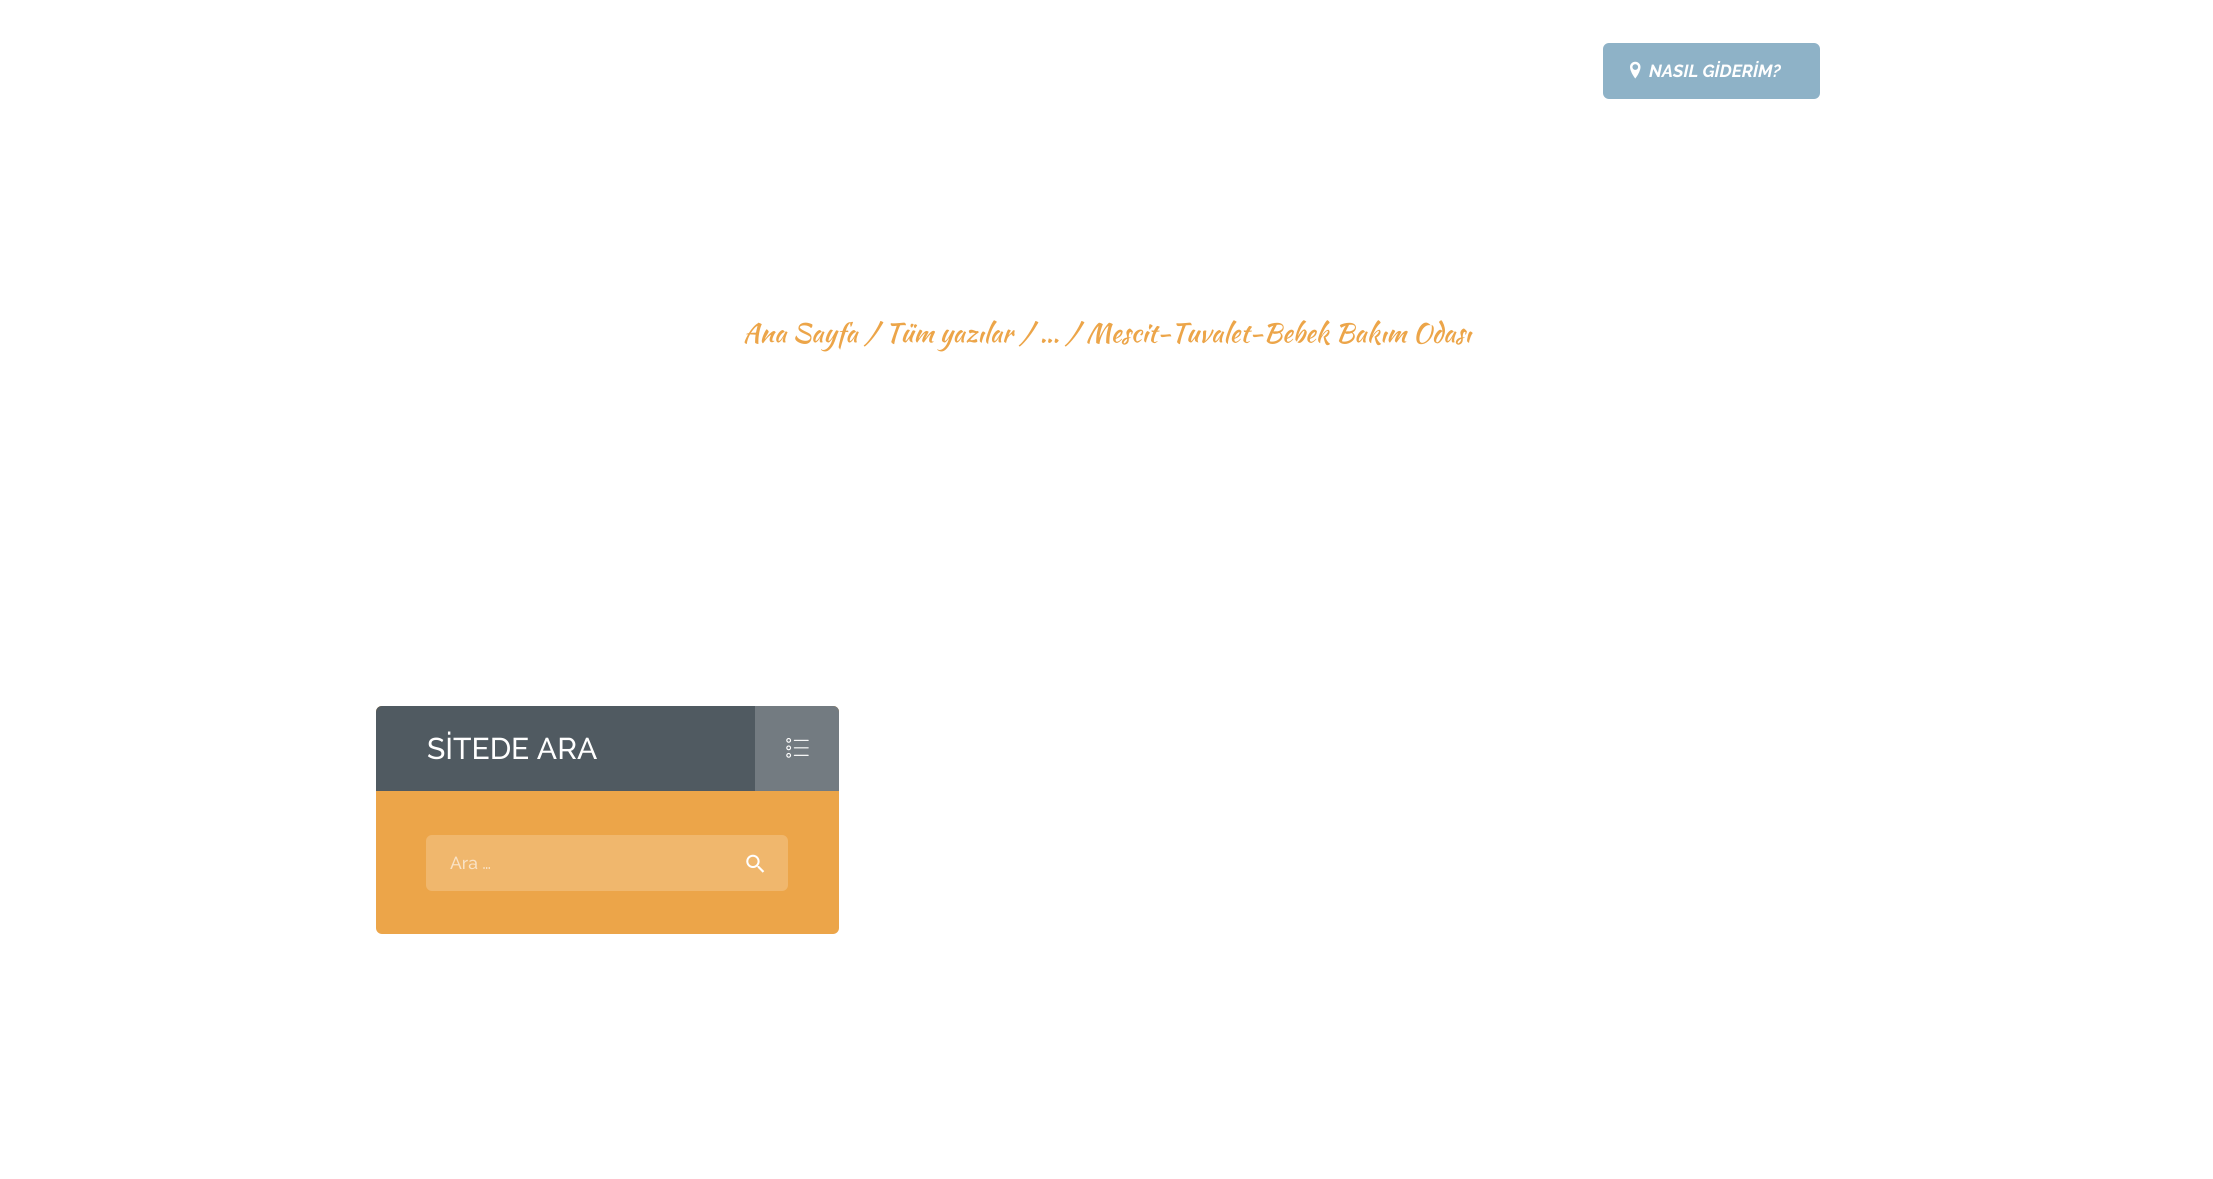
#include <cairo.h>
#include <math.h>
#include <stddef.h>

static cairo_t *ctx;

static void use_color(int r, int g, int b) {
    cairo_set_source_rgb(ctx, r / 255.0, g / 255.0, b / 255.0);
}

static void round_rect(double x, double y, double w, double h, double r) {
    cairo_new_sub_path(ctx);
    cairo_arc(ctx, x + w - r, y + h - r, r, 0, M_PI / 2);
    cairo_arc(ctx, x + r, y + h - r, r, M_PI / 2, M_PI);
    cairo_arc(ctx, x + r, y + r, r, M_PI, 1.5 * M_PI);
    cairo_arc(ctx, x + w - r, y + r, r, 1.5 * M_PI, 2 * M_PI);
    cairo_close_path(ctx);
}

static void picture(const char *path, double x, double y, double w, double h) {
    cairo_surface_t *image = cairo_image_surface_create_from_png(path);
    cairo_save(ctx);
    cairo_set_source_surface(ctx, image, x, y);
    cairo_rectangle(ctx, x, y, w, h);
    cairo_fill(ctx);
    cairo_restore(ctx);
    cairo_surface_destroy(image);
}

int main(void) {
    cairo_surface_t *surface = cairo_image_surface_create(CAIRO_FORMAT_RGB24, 2213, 1179);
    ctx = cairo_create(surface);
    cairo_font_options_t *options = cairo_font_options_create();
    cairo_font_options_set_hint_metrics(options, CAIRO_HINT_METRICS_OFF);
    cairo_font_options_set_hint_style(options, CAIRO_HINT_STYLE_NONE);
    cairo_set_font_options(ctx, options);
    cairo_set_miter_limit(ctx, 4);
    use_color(255, 255, 255);
    cairo_paint(ctx);
    use_color(142, 178, 199);
    round_rect(1603, 43, 217, 56, 6);
    cairo_fill(ctx);
    picture("img1.png", 1630, 61, 11, 18);
    cairo_select_font_face(ctx, "Raleway", CAIRO_FONT_SLANT_ITALIC, CAIRO_FONT_WEIGHT_BOLD);
    cairo_set_font_size(ctx, 17.5);
    use_color(255, 255, 255);
    cairo_move_to(ctx, 1649, 77);
    cairo_show_text(ctx, "NASIL GİDERİM?");
    cairo_select_font_face(ctx, "Kaushan Script", CAIRO_FONT_SLANT_NORMAL, CAIRO_FONT_WEIGHT_NORMAL);
    cairo_set_font_size(ctx, 26.25);
    use_color(236, 165, 73);
    cairo_move_to(ctx, 743, 342);
    cairo_show_text(ctx, "Ana Sayfa");
    cairo_move_to(ctx, 864, 342);
    cairo_show_text(ctx, "/");
    cairo_move_to(ctx, 885, 342);
    cairo_show_text(ctx, "Tüm yazılar");
    cairo_move_to(ctx, 1019, 342);
    cairo_show_text(ctx, "/");
    cairo_move_to(ctx, 1040, 342);
    cairo_show_text(ctx, "...");
    cairo_move_to(ctx, 1065, 342);
    cairo_show_text(ctx, "/");
    cairo_move_to(ctx, 1086, 342);
    cairo_show_text(ctx, "Mescit-Tuvalet-Bebek Bakım Odası");
    round_rect(376, 706, 463, 228, 6);
    cairo_fill(ctx);
    use_color(80, 90, 97);
    cairo_new_path(ctx);
    cairo_move_to(ctx, 382, 706);
    cairo_line_to(ctx, 833, 706);
    cairo_curve_to(ctx, 836.5, 706, 839, 708.5, 839, 712);
    cairo_line_to(ctx, 839, 791);
    cairo_line_to(ctx, 376, 791);
    cairo_line_to(ctx, 376, 712);
    cairo_curve_to(ctx, 376, 708.5, 378.5, 706, 382, 706);
    cairo_close_path(ctx);
    cairo_fill(ctx);
    cairo_select_font_face(ctx, "Raleway Medium", CAIRO_FONT_SLANT_NORMAL, CAIRO_FONT_WEIGHT_NORMAL);
    cairo_set_font_size(ctx, 30);
    use_color(255, 255, 255);
    cairo_move_to(ctx, 427, 759);
    cairo_show_text(ctx, "SİTEDE ARA");
    picture("img2.png", 786, 738, 23, 20);
    cairo_set_source_rgba(ctx, 1, 1, 1, 0.2);
    cairo_new_path(ctx);
    cairo_move_to(ctx, 755, 706);
    cairo_line_to(ctx, 833, 706);
    cairo_curve_to(ctx, 836.5, 706, 839, 708.5, 839, 712);
    cairo_line_to(ctx, 839, 791);
    cairo_line_to(ctx, 755, 791);
    cairo_close_path(ctx);
    cairo_fill(ctx);
    use_color(240, 183, 109);
    round_rect(426, 835, 362, 56, 6);
    cairo_fill(ctx);
    cairo_set_font_size(ctx, 17.5);
    use_color(249, 226, 197);
    cairo_move_to(ctx, 450, 869);
    cairo_show_text(ctx, "Ara …");
    picture("img3.png", 746, 854, 19, 19);
    cairo_surface_write_to_png(surface, "result.png");
    cairo_font_options_destroy(options);
    cairo_destroy(ctx);
    cairo_surface_destroy(surface);
    return 0;
}
